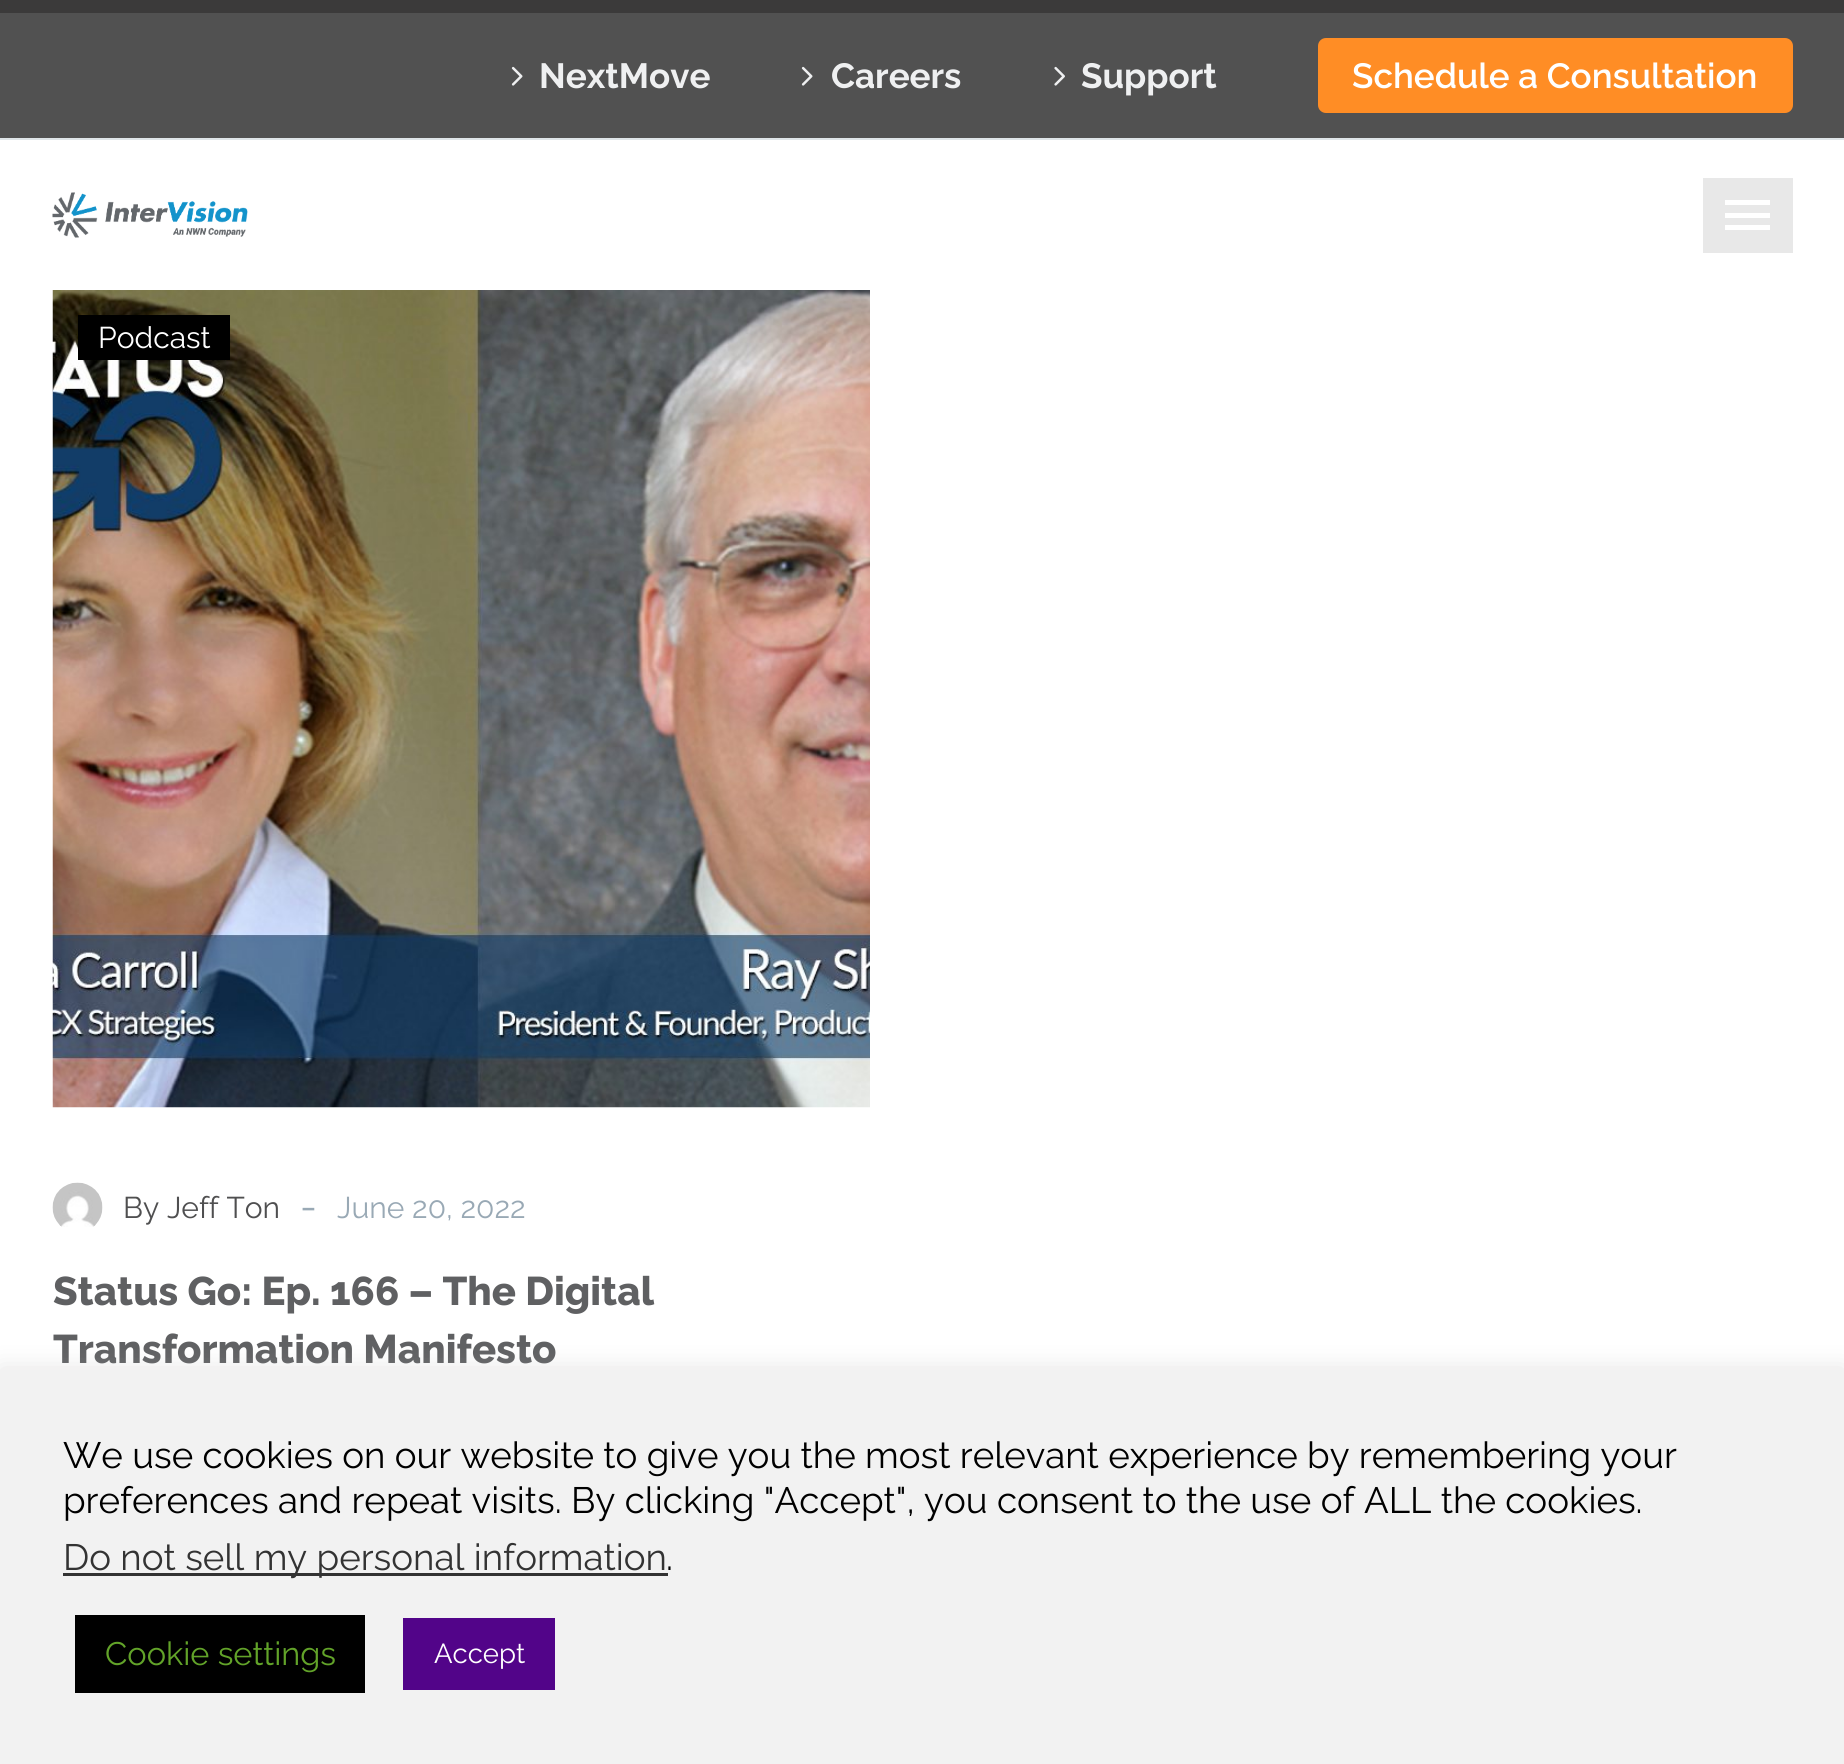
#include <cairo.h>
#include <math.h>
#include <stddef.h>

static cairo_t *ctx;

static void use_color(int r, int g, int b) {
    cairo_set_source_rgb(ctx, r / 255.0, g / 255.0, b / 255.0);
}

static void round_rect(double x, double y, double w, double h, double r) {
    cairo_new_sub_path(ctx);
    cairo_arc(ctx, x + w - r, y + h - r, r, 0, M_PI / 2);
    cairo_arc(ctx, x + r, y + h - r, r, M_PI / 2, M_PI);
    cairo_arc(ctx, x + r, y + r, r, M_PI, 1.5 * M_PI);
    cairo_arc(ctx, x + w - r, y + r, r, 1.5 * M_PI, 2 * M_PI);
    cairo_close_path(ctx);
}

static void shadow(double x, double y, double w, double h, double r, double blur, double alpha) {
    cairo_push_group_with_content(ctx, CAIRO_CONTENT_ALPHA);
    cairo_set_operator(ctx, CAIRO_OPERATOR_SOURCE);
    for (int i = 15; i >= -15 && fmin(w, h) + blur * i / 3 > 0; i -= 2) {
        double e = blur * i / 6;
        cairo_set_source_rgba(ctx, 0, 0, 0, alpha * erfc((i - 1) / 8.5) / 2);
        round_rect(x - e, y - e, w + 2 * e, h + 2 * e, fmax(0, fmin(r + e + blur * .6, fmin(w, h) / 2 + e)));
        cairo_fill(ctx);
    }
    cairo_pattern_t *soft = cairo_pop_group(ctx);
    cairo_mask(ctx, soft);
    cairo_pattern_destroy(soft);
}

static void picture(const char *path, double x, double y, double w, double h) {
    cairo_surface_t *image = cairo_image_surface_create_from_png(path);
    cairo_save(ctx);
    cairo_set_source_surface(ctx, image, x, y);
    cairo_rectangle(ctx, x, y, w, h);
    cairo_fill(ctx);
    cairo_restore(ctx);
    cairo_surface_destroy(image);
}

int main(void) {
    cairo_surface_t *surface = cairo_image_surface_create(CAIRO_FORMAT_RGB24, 1844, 1764);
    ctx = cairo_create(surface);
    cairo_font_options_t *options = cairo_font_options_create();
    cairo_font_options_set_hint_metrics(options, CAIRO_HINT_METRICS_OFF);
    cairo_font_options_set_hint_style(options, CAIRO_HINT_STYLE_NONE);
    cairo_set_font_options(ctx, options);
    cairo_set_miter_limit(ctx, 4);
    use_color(81, 81, 81);
    cairo_paint(ctx);
    use_color(59, 58, 58);
    cairo_rectangle(ctx, 0, 0, 1844, 13);
    cairo_fill(ctx);
    use_color(223, 229, 232);
    cairo_rectangle(ctx, 0, 138, 1844, 2);
    cairo_fill(ctx);
    picture("img1.png", 511, 66, 12, 20);
    cairo_select_font_face(ctx, "Raleway", CAIRO_FONT_SLANT_NORMAL, CAIRO_FONT_WEIGHT_BOLD);
    cairo_set_font_size(ctx, 35);
    use_color(239, 240, 241);
    cairo_move_to(ctx, 539, 88);
    cairo_show_text(ctx, "NextMove");
    picture("img1.png", 801, 66, 12, 20);
    cairo_move_to(ctx, 831, 88);
    cairo_show_text(ctx, "Careers");
    picture("img2.png", 1054, 66, 11, 20);
    cairo_move_to(ctx, 1081, 88);
    cairo_show_text(ctx, "Support");
    use_color(255, 141, 37);
    round_rect(1318, 38, 475, 75, 8);
    cairo_fill(ctx);
    cairo_select_font_face(ctx, "Raleway SemiBold", CAIRO_FONT_SLANT_NORMAL, CAIRO_FONT_WEIGHT_NORMAL);
    use_color(255, 255, 255);
    cairo_move_to(ctx, 1352, 88);
    cairo_show_text(ctx, "Schedule a Consultation");
    cairo_rectangle(ctx, 0, 140, 1844, 1230);
    cairo_fill(ctx);
    picture("img3.png", 52, 192, 196, 46);
    use_color(232, 232, 232);
    cairo_rectangle(ctx, 1703, 178, 90, 75);
    cairo_fill(ctx);
    use_color(255, 255, 255);
    cairo_rectangle(ctx, 1725, 200, 45, 5);
    cairo_fill(ctx);
    cairo_rectangle(ctx, 1725, 213, 45, 5);
    cairo_fill(ctx);
    cairo_rectangle(ctx, 1725, 225, 45, 5);
    cairo_fill(ctx);
    picture("img4.png", 52, 290, 818, 818);
    use_color(0, 0, 0);
    cairo_rectangle(ctx, 78, 315, 152, 45);
    cairo_fill(ctx);
    cairo_select_font_face(ctx, "Raleway", CAIRO_FONT_SLANT_NORMAL, CAIRO_FONT_WEIGHT_NORMAL);
    cairo_set_font_size(ctx, 30);
    use_color(255, 255, 255);
    cairo_move_to(ctx, 98, 348);
    cairo_show_text(ctx, "Podcast");
    picture("img5.png", 52, 1182, 51, 45);
    use_color(79, 79, 80);
    cairo_move_to(ctx, 123, 1218);
    cairo_show_text(ctx, "By Jeff Ton");
    cairo_set_font_size(ctx, 40);
    use_color(153, 169, 181);
    cairo_move_to(ctx, 300, 1220);
    cairo_show_text(ctx, "-");
    cairo_set_font_size(ctx, 30);
    cairo_move_to(ctx, 337, 1218);
    cairo_show_text(ctx, "June 20, 2022");
    cairo_select_font_face(ctx, "Raleway ExtraBold", CAIRO_FONT_SLANT_NORMAL, CAIRO_FONT_WEIGHT_NORMAL);
    cairo_set_font_size(ctx, 40);
    use_color(95, 96, 98);
    cairo_move_to(ctx, 53, 1305);
    cairo_show_text(ctx, "Status Go: Ep. 166 – The Digital");
    cairo_move_to(ctx, 53, 1363);
    cairo_show_text(ctx, "Transformation Manifesto");
    use_color(172, 171, 171);
    shadow(0, 1368, 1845, 395, 0, 12.5, 0.3);
    use_color(242, 242, 242);
    cairo_rectangle(ctx, 0, 1370, 1844, 394);
    cairo_fill(ctx);
    cairo_select_font_face(ctx, "Raleway", CAIRO_FONT_SLANT_NORMAL, CAIRO_FONT_WEIGHT_NORMAL);
    cairo_set_font_size(ctx, 36.65);
    use_color(0, 0, 0);
    cairo_move_to(ctx, 63, 1468);
    cairo_show_text(ctx, "We use cookies on our website to give you the most relevant experience by remembering your");
    cairo_move_to(ctx, 63, 1513);
    cairo_show_text(ctx, "preferences and repeat visits. By clicking \"Accept\", you consent to the use of ALL the cookies.");
    use_color(51, 51, 51);
    cairo_rectangle(ctx, 63, 1573, 605, 3);
    cairo_fill(ctx);
    cairo_move_to(ctx, 63, 1570);
    cairo_show_text(ctx, "Do not sell my personal information");
    use_color(0, 0, 0);
    cairo_move_to(ctx, 666, 1570);
    cairo_show_text(ctx, ".");
    cairo_rectangle(ctx, 75, 1615, 290, 78);
    cairo_fill(ctx);
    cairo_set_font_size(ctx, 32.5);
    use_color(98, 163, 41);
    cairo_move_to(ctx, 105, 1665);
    cairo_show_text(ctx, "Cookie settings");
    use_color(82, 4, 137);
    cairo_rectangle(ctx, 403, 1618, 152, 72);
    cairo_fill(ctx);
    cairo_set_font_size(ctx, 27.5);
    use_color(255, 255, 255);
    cairo_move_to(ctx, 434, 1663);
    cairo_show_text(ctx, "Accept");
    cairo_surface_write_to_png(surface, "result.png");
    cairo_font_options_destroy(options);
    cairo_destroy(ctx);
    cairo_surface_destroy(surface);
    return 0;
}
